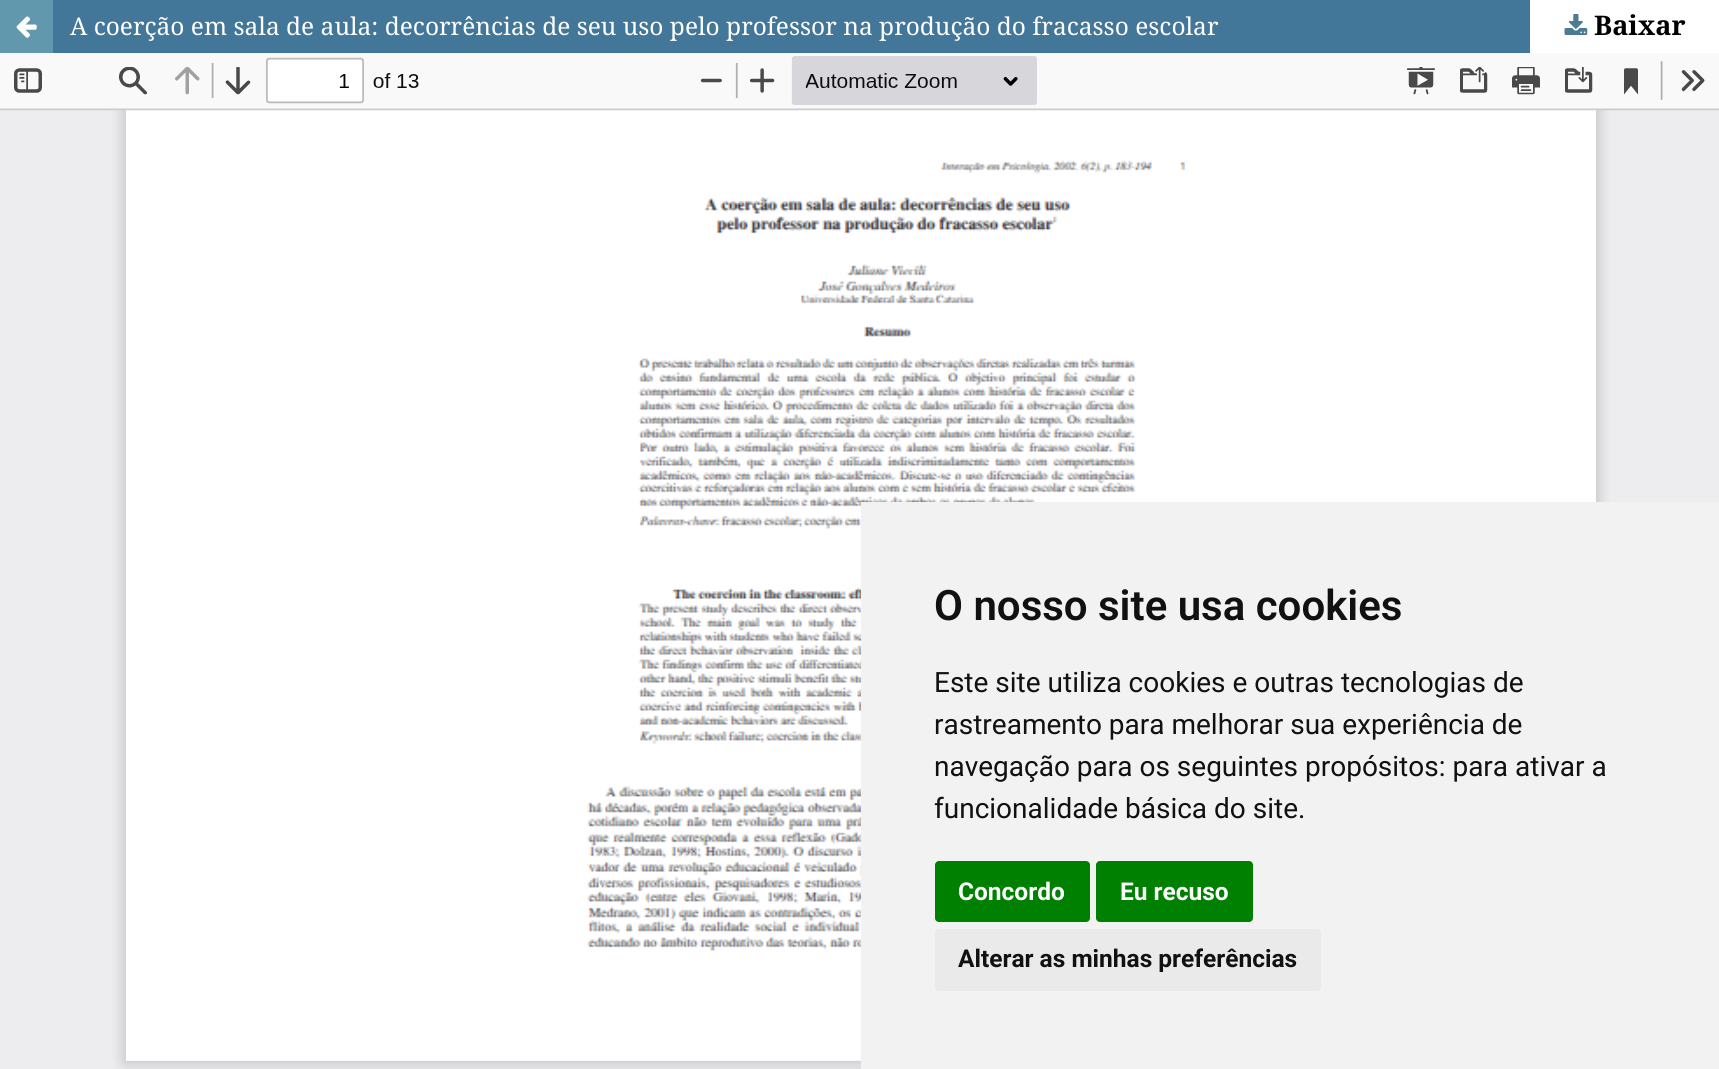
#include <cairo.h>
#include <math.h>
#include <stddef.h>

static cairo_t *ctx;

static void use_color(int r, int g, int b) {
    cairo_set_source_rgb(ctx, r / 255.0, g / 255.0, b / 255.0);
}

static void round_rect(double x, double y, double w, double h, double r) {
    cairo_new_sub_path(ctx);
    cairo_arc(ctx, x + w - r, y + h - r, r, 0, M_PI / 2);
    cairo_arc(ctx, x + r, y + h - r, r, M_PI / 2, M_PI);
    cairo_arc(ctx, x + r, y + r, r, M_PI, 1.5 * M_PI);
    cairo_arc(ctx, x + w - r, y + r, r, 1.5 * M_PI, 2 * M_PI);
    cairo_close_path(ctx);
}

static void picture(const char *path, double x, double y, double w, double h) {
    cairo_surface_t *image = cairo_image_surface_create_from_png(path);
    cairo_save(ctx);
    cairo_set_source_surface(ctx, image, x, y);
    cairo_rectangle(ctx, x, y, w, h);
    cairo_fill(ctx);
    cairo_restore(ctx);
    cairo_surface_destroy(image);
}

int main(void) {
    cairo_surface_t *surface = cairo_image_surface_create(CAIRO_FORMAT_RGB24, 1719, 1069);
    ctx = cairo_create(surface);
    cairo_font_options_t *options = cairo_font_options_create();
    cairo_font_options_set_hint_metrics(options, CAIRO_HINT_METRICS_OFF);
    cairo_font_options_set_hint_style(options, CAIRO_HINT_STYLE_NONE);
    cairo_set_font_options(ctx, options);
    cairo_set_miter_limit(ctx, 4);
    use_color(255, 255, 255);
    cairo_paint(ctx);
    use_color(66, 119, 153);
    cairo_rectangle(ctx, 53, 0, 1477, 53);
    cairo_fill(ctx);
    use_color(98, 152, 174);
    cairo_rectangle(ctx, 0, 0, 53, 53);
    cairo_fill(ctx);
    picture("img1.png", 16, 16, 21, 22);
    cairo_select_font_face(ctx, "Noto Serif", CAIRO_FONT_SLANT_NORMAL, CAIRO_FONT_WEIGHT_NORMAL);
    cairo_set_font_size(ctx, 24.5);
    use_color(255, 255, 255);
    cairo_move_to(ctx, 70, 35);
    cairo_show_text(ctx, "A coerção em sala de aula: decorrências de seu uso pelo professor na produção do fracasso escolar");
    picture("img2.png", 1564, 14, 24, 21);
    cairo_select_font_face(ctx, "Noto Serif", CAIRO_FONT_SLANT_NORMAL, CAIRO_FONT_WEIGHT_BOLD);
    cairo_set_font_size(ctx, 27);
    use_color(0, 0, 0);
    cairo_move_to(ctx, 1594, 35);
    cairo_show_text(ctx, "Baixar");
    picture("img3.png", 0, 53, 1719, 1016);
    use_color(242, 242, 242);
    cairo_rectangle(ctx, 861, 502, 858, 567);
    cairo_fill(ctx);
    cairo_select_font_face(ctx, "Roboto SemiBold", CAIRO_FONT_SLANT_NORMAL, CAIRO_FONT_WEIGHT_NORMAL);
    cairo_set_font_size(ctx, 42);
    use_color(17, 17, 17);
    cairo_move_to(ctx, 934, 620);
    cairo_show_text(ctx, "O nosso site usa cookies");
    cairo_select_font_face(ctx, "Roboto", CAIRO_FONT_SLANT_NORMAL, CAIRO_FONT_WEIGHT_NORMAL);
    cairo_set_font_size(ctx, 28);
    cairo_move_to(ctx, 934, 692);
    cairo_show_text(ctx, "Este site utiliza cookies e outras tecnologias de");
    cairo_move_to(ctx, 934, 734);
    cairo_show_text(ctx, "rastreamento para melhorar sua experiência de");
    cairo_move_to(ctx, 934, 776);
    cairo_show_text(ctx, "navegação para os seguintes propósitos: para ativar a");
    cairo_move_to(ctx, 934, 818);
    cairo_show_text(ctx, "funcionalidade básica do site.");
    use_color(0, 128, 0);
    round_rect(935, 861, 155, 61, 4);
    cairo_fill(ctx);
    cairo_select_font_face(ctx, "Roboto", CAIRO_FONT_SLANT_NORMAL, CAIRO_FONT_WEIGHT_BOLD);
    cairo_set_font_size(ctx, 24.5);
    use_color(255, 255, 255);
    cairo_move_to(ctx, 958, 900);
    cairo_show_text(ctx, "Concordo");
    use_color(0, 128, 0);
    round_rect(1096, 861, 157, 61, 4);
    cairo_fill(ctx);
    use_color(255, 255, 255);
    cairo_move_to(ctx, 1120, 900);
    cairo_show_text(ctx, "Eu recuso");
    use_color(234, 234, 234);
    round_rect(935, 929, 386, 62, 4);
    cairo_fill(ctx);
    use_color(17, 17, 17);
    cairo_move_to(ctx, 958, 967);
    cairo_show_text(ctx, "Alterar as minhas preferências");
    cairo_surface_write_to_png(surface, "result.png");
    cairo_font_options_destroy(options);
    cairo_destroy(ctx);
    cairo_surface_destroy(surface);
    return 0;
}
